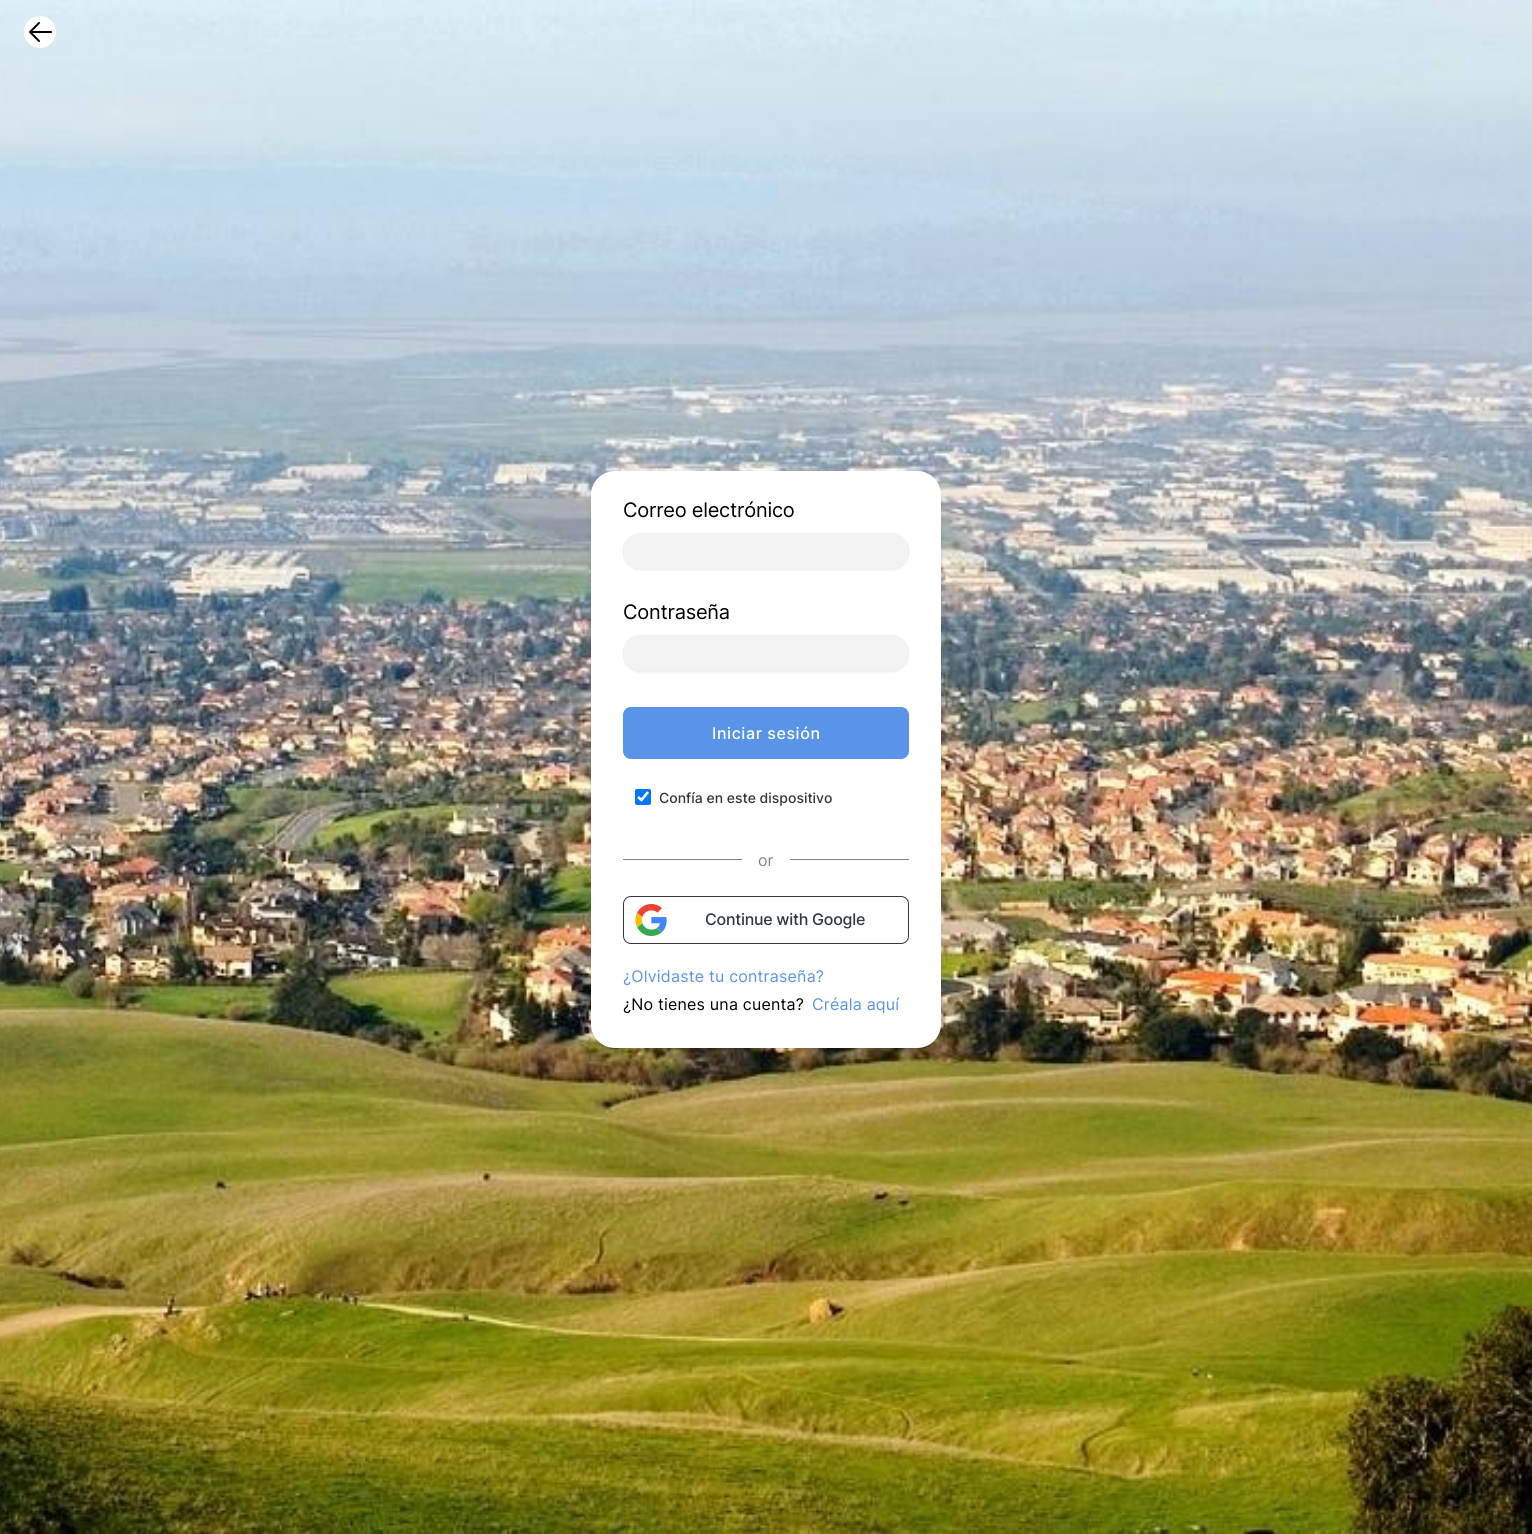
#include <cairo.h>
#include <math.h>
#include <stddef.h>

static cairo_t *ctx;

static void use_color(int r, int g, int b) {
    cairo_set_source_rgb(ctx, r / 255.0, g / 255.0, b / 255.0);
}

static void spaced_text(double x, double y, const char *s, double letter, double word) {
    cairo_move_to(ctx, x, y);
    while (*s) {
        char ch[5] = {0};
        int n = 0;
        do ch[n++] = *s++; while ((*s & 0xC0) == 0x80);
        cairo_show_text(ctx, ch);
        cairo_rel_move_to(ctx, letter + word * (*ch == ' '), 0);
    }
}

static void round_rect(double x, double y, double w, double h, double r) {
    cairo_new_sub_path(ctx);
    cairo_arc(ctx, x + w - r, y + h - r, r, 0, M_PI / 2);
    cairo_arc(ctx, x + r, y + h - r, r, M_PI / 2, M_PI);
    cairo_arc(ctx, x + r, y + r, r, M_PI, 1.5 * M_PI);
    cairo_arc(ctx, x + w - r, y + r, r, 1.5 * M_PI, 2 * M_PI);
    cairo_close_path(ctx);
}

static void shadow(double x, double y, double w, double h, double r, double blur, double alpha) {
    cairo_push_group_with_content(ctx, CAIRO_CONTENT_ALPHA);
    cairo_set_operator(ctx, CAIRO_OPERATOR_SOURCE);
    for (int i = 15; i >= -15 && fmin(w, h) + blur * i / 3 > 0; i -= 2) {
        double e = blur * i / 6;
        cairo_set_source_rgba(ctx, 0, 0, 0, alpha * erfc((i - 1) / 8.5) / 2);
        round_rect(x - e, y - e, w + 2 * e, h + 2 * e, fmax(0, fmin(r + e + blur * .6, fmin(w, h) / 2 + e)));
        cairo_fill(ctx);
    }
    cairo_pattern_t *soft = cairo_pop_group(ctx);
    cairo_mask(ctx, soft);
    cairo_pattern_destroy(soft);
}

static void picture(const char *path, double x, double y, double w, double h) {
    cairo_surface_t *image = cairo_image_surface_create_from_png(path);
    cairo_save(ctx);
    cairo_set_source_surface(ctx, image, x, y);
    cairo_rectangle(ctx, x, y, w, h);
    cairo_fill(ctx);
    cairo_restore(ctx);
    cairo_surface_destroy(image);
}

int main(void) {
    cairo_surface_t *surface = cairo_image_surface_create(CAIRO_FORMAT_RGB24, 1532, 1534);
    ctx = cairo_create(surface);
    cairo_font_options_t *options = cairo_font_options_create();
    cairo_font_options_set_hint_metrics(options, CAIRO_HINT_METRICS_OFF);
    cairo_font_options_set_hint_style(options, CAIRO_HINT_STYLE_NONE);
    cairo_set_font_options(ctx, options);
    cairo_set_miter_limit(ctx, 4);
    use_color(255, 255, 255);
    cairo_paint(ctx);
    picture("img1.png", 0, 0, 1532, 1534);
    use_color(255, 255, 255);
    cairo_arc(ctx, 40, 32, 16, 0, 2 * M_PI);
    cairo_fill(ctx);
    cairo_new_path(ctx);
    cairo_move_to(ctx, 39, 23);
    cairo_line_to(ctx, 30, 32);
    cairo_move_to(ctx, 39, 41);
    cairo_line_to(ctx, 30, 32);
    cairo_move_to(ctx, 30, 32);
    cairo_line_to(ctx, 51, 32);
    use_color(0, 0, 0);
    cairo_set_line_cap(ctx, CAIRO_LINE_CAP_ROUND);
    cairo_set_line_join(ctx, CAIRO_LINE_JOIN_ROUND);
    cairo_stroke(ctx);
    use_color(0, 0, 0);
    shadow(593, 475, 346, 573, 22, 2, 0.1);
    shadow(592, 476, 348, 575, 23, 3, 0.1);
    use_color(255, 255, 255);
    round_rect(591, 471, 350, 577, 24);
    cairo_fill(ctx);
    cairo_select_font_face(ctx, "Inter", CAIRO_FONT_SLANT_NORMAL, CAIRO_FONT_WEIGHT_NORMAL);
    cairo_set_font_size(ctx, 20);
    use_color(0, 0, 0);
    spaced_text(623, 517, "Correo electrónico", -0.25, 0);
    use_color(33, 37, 41);
    shadow(623, 535, 286, 36, 18, 1, 0.06);
    shadow(623, 533, 286, 36, 18, 0.5, 0.08);
    use_color(243, 243, 243);
    round_rect(623, 533, 286, 36, 18);
    cairo_fill(ctx);
    use_color(0, 0, 0);
    spaced_text(623, 619, "Contraseña", -0.25, 0);
    use_color(33, 37, 41);
    shadow(623, 637, 286, 36, 18, 1, 0.06);
    shadow(623, 635, 286, 36, 18, 0.5, 0.08);
    use_color(243, 243, 243);
    round_rect(623, 635, 286, 36, 18);
    cairo_fill(ctx);
    use_color(89, 148, 232);
    round_rect(623, 707, 286, 52, 8);
    cairo_fill(ctx);
    cairo_select_font_face(ctx, "Inter Medium", CAIRO_FONT_SLANT_NORMAL, CAIRO_FONT_WEIGHT_NORMAL);
    cairo_set_font_size(ctx, 16);
    use_color(255, 255, 255);
    spaced_text(712, 739, "Iniciar sesión", 0.6, 0);
    use_color(0, 117, 255);
    round_rect(635, 789, 16, 16, 2);
    cairo_fill(ctx);
    cairo_new_path(ctx);
    cairo_move_to(ctx, 638, 797);
    cairo_line_to(ctx, 641.5, 800);
    cairo_line_to(ctx, 648, 792);
    use_color(255, 255, 255);
    cairo_set_line_width(ctx, 2.6);
    cairo_set_line_cap(ctx, CAIRO_LINE_CAP_BUTT);
    cairo_set_line_join(ctx, CAIRO_LINE_JOIN_MITER);
    cairo_stroke(ctx);
    cairo_set_font_size(ctx, 14);
    use_color(49, 56, 64);
    cairo_move_to(ctx, 659, 803);
    cairo_show_text(ctx, "Confía en este dispositivo");
    use_color(130, 130, 130);
    cairo_rectangle(ctx, 623, 859, 286, 1);
    cairo_fill(ctx);
    use_color(255, 255, 255);
    cairo_rectangle(ctx, 742, 859, 48, 1);
    cairo_fill(ctx);
    cairo_select_font_face(ctx, "Inter", CAIRO_FONT_SLANT_NORMAL, CAIRO_FONT_WEIGHT_NORMAL);
    cairo_set_font_size(ctx, 16);
    use_color(130, 130, 130);
    cairo_move_to(ctx, 758, 866);
    cairo_show_text(ctx, "or");
    round_rect(623.5, 896.5, 285, 47, 7.5);
    use_color(49, 56, 64);
    cairo_set_line_width(ctx, 1);
    cairo_stroke(ctx);
    picture("img2.png", 635, 904, 32, 32);
    cairo_select_font_face(ctx, "Inter Medium", CAIRO_FONT_SLANT_NORMAL, CAIRO_FONT_WEIGHT_NORMAL);
    spaced_text(705, 925, "Continue with Google", -0.25, 0);
    cairo_select_font_face(ctx, "Inter", CAIRO_FONT_SLANT_NORMAL, CAIRO_FONT_WEIGHT_NORMAL);
    use_color(89, 148, 232);
    spaced_text(623, 982, "¿Olvidaste tu contraseña?", 0.2, 0);
    use_color(0, 0, 0);
    spaced_text(623, 1010, "¿No tienes una cuenta?", 0.2, 0);
    use_color(89, 148, 232);
    spaced_text(812, 1010, "Créala aquí", 0.2, 0);
    cairo_surface_write_to_png(surface, "result.png");
    cairo_font_options_destroy(options);
    cairo_destroy(ctx);
    cairo_surface_destroy(surface);
    return 0;
}
